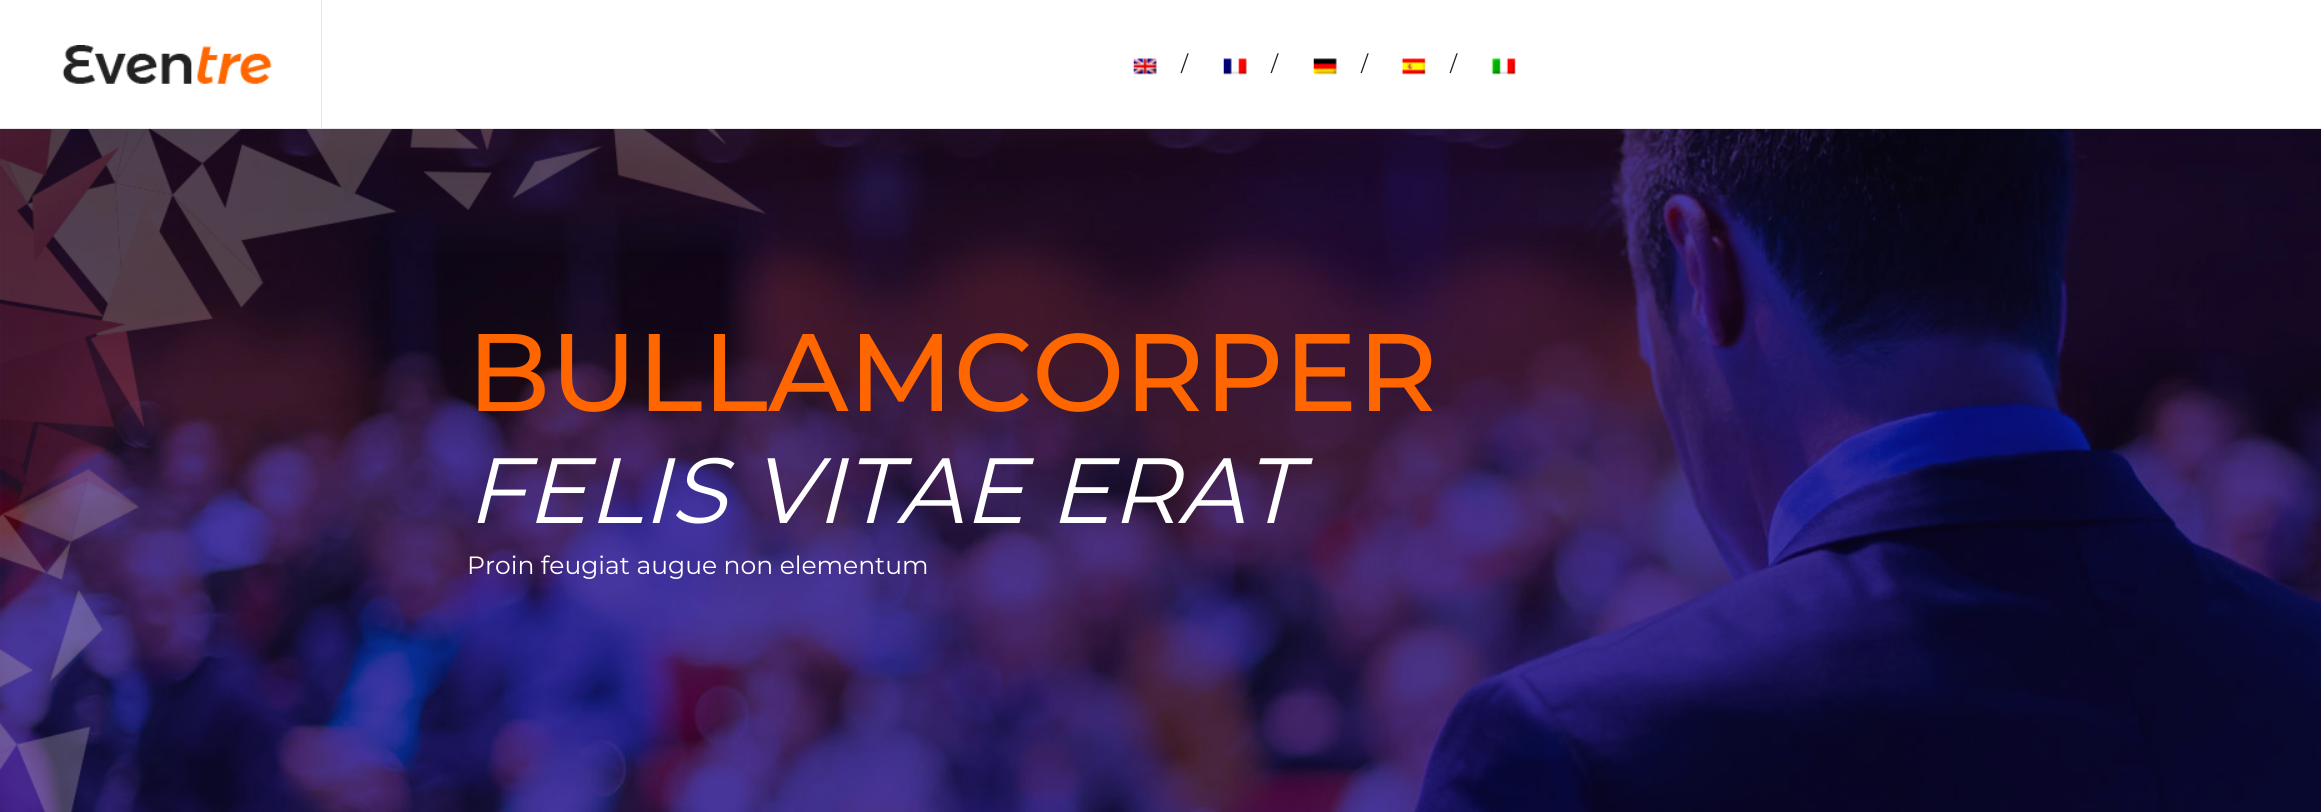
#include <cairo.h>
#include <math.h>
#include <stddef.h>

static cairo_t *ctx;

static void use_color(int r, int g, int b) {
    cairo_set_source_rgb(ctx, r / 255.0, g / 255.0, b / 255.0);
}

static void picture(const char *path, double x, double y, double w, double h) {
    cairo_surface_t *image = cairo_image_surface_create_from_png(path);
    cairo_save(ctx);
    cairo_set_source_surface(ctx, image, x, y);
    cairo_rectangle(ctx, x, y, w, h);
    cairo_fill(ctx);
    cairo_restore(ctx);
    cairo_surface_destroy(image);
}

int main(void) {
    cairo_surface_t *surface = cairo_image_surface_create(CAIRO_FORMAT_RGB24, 2321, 812);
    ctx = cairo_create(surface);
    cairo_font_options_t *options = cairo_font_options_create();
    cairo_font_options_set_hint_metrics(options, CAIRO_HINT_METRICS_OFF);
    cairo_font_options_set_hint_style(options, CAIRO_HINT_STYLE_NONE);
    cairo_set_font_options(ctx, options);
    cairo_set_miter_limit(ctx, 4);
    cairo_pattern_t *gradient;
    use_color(255, 255, 255);
    cairo_paint(ctx);
    use_color(229, 229, 229);
    cairo_rectangle(ctx, 0, 128, 2321, 1);
    cairo_fill(ctx);
    cairo_rectangle(ctx, 321, 0, 1, 128);
    cairo_fill(ctx);
    picture("img1.png", 62, 45, 210, 39);
    picture("img2.png", 1133, 58, 24, 17);
    cairo_select_font_face(ctx, "Montserrat", CAIRO_FONT_SLANT_NORMAL, CAIRO_FONT_WEIGHT_NORMAL);
    cairo_set_font_size(ctx, 21);
    use_color(34, 34, 34);
    cairo_move_to(ctx, 1181, 71);
    cairo_show_text(ctx, "/");
    picture("img3.png", 1223, 58, 24, 17);
    cairo_move_to(ctx, 1271, 71);
    cairo_show_text(ctx, "/");
    picture("img4.png", 1313, 58, 24, 17);
    cairo_move_to(ctx, 1361, 71);
    cairo_show_text(ctx, "/");
    picture("img5.png", 1401, 58, 25, 17);
    cairo_move_to(ctx, 1450, 71);
    cairo_show_text(ctx, "/");
    picture("img6.png", 1491, 58, 25, 17);
    picture("img7.png", 0, 129, 2321, 683);
    picture("img8.png", 0, 129, 766, 683);
    gradient = cairo_pattern_create_linear(373, -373, 1948, 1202);
    cairo_pattern_add_color_stop_rgba(gradient, 0, 0.118, 0.341, 0.6, 0.25);
    cairo_pattern_add_color_stop_rgba(gradient, 0, 0.114, 0.082, 0.275, 0.25);
    cairo_pattern_add_color_stop_rgba(gradient, 1, 0.102, 0.043, 0.145, 0.25);
    cairo_pattern_add_color_stop_rgba(gradient, 1, 0.125, 0.486, 0.792, 0.25);
    cairo_set_source(ctx, gradient);
    cairo_pattern_destroy(gradient);
    cairo_rectangle(ctx, 0, 129, 2321, 683);
    cairo_fill(ctx);
    cairo_select_font_face(ctx, "Montserrat Medium", CAIRO_FONT_SLANT_NORMAL, CAIRO_FONT_WEIGHT_NORMAL);
    cairo_set_font_size(ctx, 110);
    use_color(255, 102, 0);
    cairo_move_to(ctx, 467, 411);
    cairo_show_text(ctx, "BULLAMCORPER");
    cairo_select_font_face(ctx, "Montserrat", CAIRO_FONT_SLANT_ITALIC, CAIRO_FONT_WEIGHT_NORMAL);
    cairo_set_font_size(ctx, 92.5);
    use_color(255, 255, 255);
    cairo_move_to(ctx, 467, 523);
    cairo_show_text(ctx, "FELIS VITAE ERAT");
    cairo_select_font_face(ctx, "Montserrat", CAIRO_FONT_SLANT_NORMAL, CAIRO_FONT_WEIGHT_NORMAL);
    cairo_set_font_size(ctx, 25);
    cairo_move_to(ctx, 467, 574);
    cairo_show_text(ctx, "Proin feugiat augue non elementum");
    cairo_surface_write_to_png(surface, "result.png");
    cairo_font_options_destroy(options);
    cairo_destroy(ctx);
    cairo_surface_destroy(surface);
    return 0;
}
